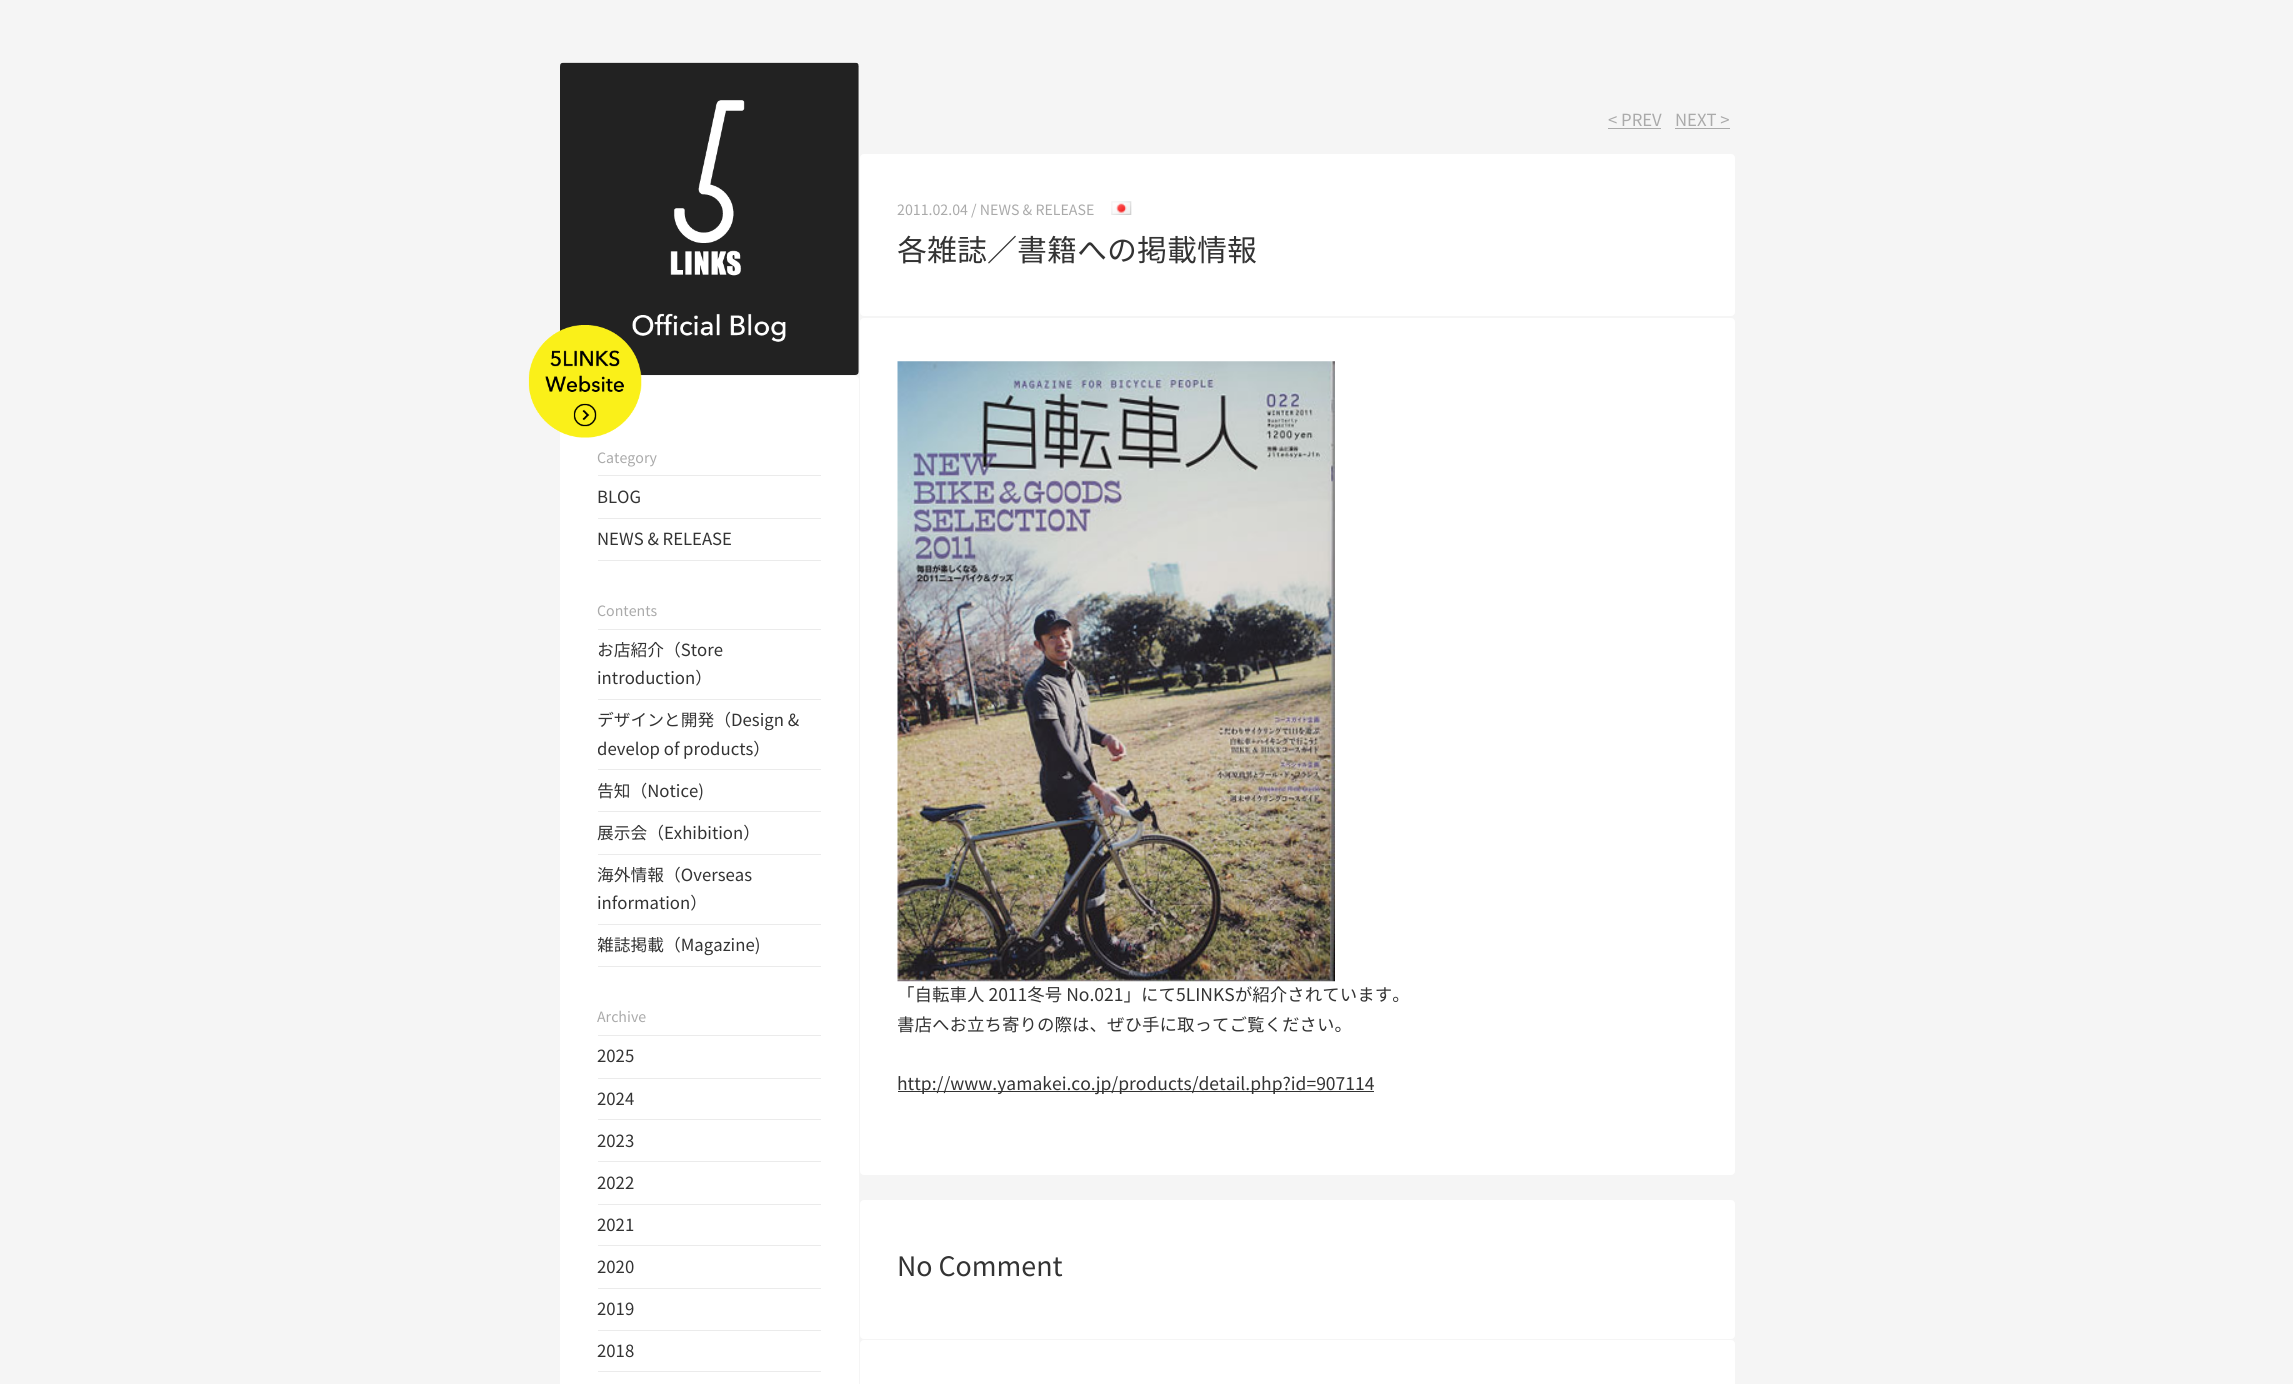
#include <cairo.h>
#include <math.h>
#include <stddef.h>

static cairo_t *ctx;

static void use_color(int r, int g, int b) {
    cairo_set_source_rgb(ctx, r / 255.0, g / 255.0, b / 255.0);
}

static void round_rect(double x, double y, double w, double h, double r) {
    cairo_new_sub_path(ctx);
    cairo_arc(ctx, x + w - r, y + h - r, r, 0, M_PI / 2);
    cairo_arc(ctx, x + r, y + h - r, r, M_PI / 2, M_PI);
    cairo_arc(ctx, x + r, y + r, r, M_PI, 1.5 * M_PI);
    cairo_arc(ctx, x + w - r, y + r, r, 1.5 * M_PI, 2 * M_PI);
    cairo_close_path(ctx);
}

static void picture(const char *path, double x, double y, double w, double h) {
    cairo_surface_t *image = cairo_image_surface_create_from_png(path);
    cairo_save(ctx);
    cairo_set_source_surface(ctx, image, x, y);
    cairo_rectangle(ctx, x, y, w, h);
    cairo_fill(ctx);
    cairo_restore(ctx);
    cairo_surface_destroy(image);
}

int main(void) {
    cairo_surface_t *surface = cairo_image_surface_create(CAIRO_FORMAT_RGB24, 2293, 1384);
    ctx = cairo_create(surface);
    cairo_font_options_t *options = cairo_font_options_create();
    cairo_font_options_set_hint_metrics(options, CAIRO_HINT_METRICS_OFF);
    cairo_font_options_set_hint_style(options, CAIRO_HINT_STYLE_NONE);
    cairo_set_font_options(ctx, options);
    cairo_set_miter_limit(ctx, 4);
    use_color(245, 245, 245);
    cairo_paint(ctx);
    picture("img1.png", 560, 62, 299, 313);
    use_color(255, 255, 255);
    round_rect(560, 376, 299, 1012, 4);
    cairo_fill(ctx);
    picture("img2.png", 528, 325, 114, 113);
    use_color(235, 235, 235);
    cairo_rectangle(ctx, 598, 475, 223, 1);
    cairo_fill(ctx);
    cairo_select_font_face(ctx, "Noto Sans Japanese", CAIRO_FONT_SLANT_NORMAL, CAIRO_FONT_WEIGHT_NORMAL);
    cairo_set_font_size(ctx, 14.2);
    use_color(170, 170, 170);
    cairo_move_to(ctx, 597, 463);
    cairo_show_text(ctx, "Category");
    use_color(235, 235, 235);
    cairo_rectangle(ctx, 598, 518, 223, 1);
    cairo_fill(ctx);
    cairo_set_font_size(ctx, 16.75);
    use_color(51, 51, 51);
    cairo_move_to(ctx, 597, 503);
    cairo_show_text(ctx, "BLOG");
    use_color(235, 235, 235);
    cairo_rectangle(ctx, 598, 560, 223, 1);
    cairo_fill(ctx);
    use_color(51, 51, 51);
    cairo_move_to(ctx, 597, 545);
    cairo_show_text(ctx, "NEWS & RELEASE");
    use_color(235, 235, 235);
    cairo_rectangle(ctx, 598, 629, 223, 1);
    cairo_fill(ctx);
    cairo_set_font_size(ctx, 14.2);
    use_color(170, 170, 170);
    cairo_move_to(ctx, 597, 616);
    cairo_show_text(ctx, "Contents");
    use_color(235, 235, 235);
    cairo_rectangle(ctx, 598, 699, 223, 1);
    cairo_fill(ctx);
    cairo_set_font_size(ctx, 16.75);
    use_color(51, 51, 51);
    cairo_move_to(ctx, 597, 656);
    cairo_show_text(ctx, "お店紹介（Store");
    cairo_move_to(ctx, 597, 684);
    cairo_show_text(ctx, "introduction）");
    use_color(235, 235, 235);
    cairo_rectangle(ctx, 598, 769, 223, 1);
    cairo_fill(ctx);
    use_color(51, 51, 51);
    cairo_move_to(ctx, 597, 726);
    cairo_show_text(ctx, "デザインと開発（Design &");
    cairo_save(ctx);
    cairo_rectangle(ctx, 598, 706, 223, 57);
    cairo_clip(ctx);
    cairo_move_to(ctx, 597, 755);
    cairo_show_text(ctx, "develop of products）");
    cairo_restore(ctx);
    use_color(235, 235, 235);
    cairo_rectangle(ctx, 598, 811, 223, 1);
    cairo_fill(ctx);
    use_color(51, 51, 51);
    cairo_move_to(ctx, 597, 797);
    cairo_show_text(ctx, "告知（Notice)");
    use_color(235, 235, 235);
    cairo_rectangle(ctx, 598, 854, 223, 1);
    cairo_fill(ctx);
    use_color(51, 51, 51);
    cairo_move_to(ctx, 597, 839);
    cairo_show_text(ctx, "展示会（Exhibition）");
    use_color(235, 235, 235);
    cairo_rectangle(ctx, 598, 924, 223, 1);
    cairo_fill(ctx);
    use_color(51, 51, 51);
    cairo_move_to(ctx, 597, 881);
    cairo_show_text(ctx, "海外情報（Overseas");
    cairo_move_to(ctx, 597, 909);
    cairo_show_text(ctx, "information）");
    use_color(235, 235, 235);
    cairo_rectangle(ctx, 598, 966, 223, 1);
    cairo_fill(ctx);
    cairo_save(ctx);
    cairo_rectangle(ctx, 598, 931, 223, 29);
    cairo_clip(ctx);
    use_color(51, 51, 51);
    cairo_move_to(ctx, 597, 951);
    cairo_show_text(ctx, "雑誌掲載（Magazine)");
    cairo_restore(ctx);
    cairo_rectangle(ctx, 598, 1035, 223, 1);
    cairo_fill(ctx);
    cairo_set_font_size(ctx, 14.2);
    use_color(170, 170, 170);
    cairo_move_to(ctx, 597, 1022);
    cairo_show_text(ctx, "Archive");
    use_color(235, 235, 235);
    cairo_rectangle(ctx, 598, 1078, 223, 1);
    cairo_fill(ctx);
    cairo_set_font_size(ctx, 16.75);
    use_color(51, 51, 51);
    cairo_move_to(ctx, 597, 1062);
    cairo_show_text(ctx, "2025");
    use_color(235, 235, 235);
    cairo_rectangle(ctx, 598, 1119, 223, 1);
    cairo_fill(ctx);
    use_color(51, 51, 51);
    cairo_move_to(ctx, 597, 1105);
    cairo_show_text(ctx, "2024");
    use_color(235, 235, 235);
    cairo_rectangle(ctx, 598, 1161, 223, 1);
    cairo_fill(ctx);
    use_color(51, 51, 51);
    cairo_move_to(ctx, 597, 1147);
    cairo_show_text(ctx, "2023");
    use_color(235, 235, 235);
    cairo_rectangle(ctx, 598, 1204, 223, 1);
    cairo_fill(ctx);
    use_color(51, 51, 51);
    cairo_move_to(ctx, 597, 1189);
    cairo_show_text(ctx, "2022");
    use_color(235, 235, 235);
    cairo_rectangle(ctx, 598, 1245, 223, 1);
    cairo_fill(ctx);
    use_color(51, 51, 51);
    cairo_move_to(ctx, 597, 1231);
    cairo_show_text(ctx, "2021");
    use_color(235, 235, 235);
    cairo_rectangle(ctx, 598, 1288, 223, 1);
    cairo_fill(ctx);
    use_color(51, 51, 51);
    cairo_move_to(ctx, 597, 1273);
    cairo_show_text(ctx, "2020");
    use_color(235, 235, 235);
    cairo_rectangle(ctx, 598, 1330, 223, 1);
    cairo_fill(ctx);
    use_color(51, 51, 51);
    cairo_move_to(ctx, 597, 1315);
    cairo_show_text(ctx, "2019");
    use_color(235, 235, 235);
    cairo_rectangle(ctx, 598, 1371, 223, 1);
    cairo_fill(ctx);
    use_color(51, 51, 51);
    cairo_move_to(ctx, 597, 1357);
    cairo_show_text(ctx, "2018");
    use_color(170, 170, 170);
    cairo_move_to(ctx, 1608, 126);
    cairo_show_text(ctx, "< PREV");
    cairo_rectangle(ctx, 1608, 128, 53, 1);
    cairo_fill(ctx);
    cairo_move_to(ctx, 1675, 126);
    cairo_show_text(ctx, "NEXT >");
    cairo_rectangle(ctx, 1675, 128, 55, 1);
    cairo_fill(ctx);
    use_color(255, 255, 255);
    round_rect(860, 154, 875, 162, 4);
    cairo_fill(ctx);
    cairo_set_font_size(ctx, 14.2);
    use_color(170, 170, 170);
    cairo_move_to(ctx, 897, 215);
    cairo_show_text(ctx, "2011.02.04 / NEWS & RELEASE");
    picture("img3.png", 1111, 201, 21, 14);
    cairo_set_font_size(ctx, 30);
    use_color(51, 51, 51);
    cairo_move_to(ctx, 897, 261);
    cairo_show_text(ctx, "各雑誌／書籍への掲載情報");
    use_color(255, 255, 255);
    round_rect(860, 318, 875, 857, 4);
    cairo_fill(ctx);
    picture("img4.png", 897, 361, 438, 621);
    cairo_set_font_size(ctx, 17.5);
    use_color(51, 51, 51);
    cairo_move_to(ctx, 897, 1001);
    cairo_show_text(ctx, "「自転車人 2011冬号 No.021」にて5LINKSが紹介されています。");
    cairo_move_to(ctx, 897, 1031);
    cairo_show_text(ctx, "書店へお立ち寄りの際は、ぜひ手に取ってご覧ください。");
    cairo_rectangle(ctx, 898, 1091, 476, 1);
    cairo_fill(ctx);
    cairo_move_to(ctx, 897, 1090);
    cairo_show_text(ctx, "http://www.yamakei.co.jp/products/detail.php?id=907114");
    use_color(255, 255, 255);
    round_rect(860, 1200, 875, 139, 4);
    cairo_fill(ctx);
    cairo_set_font_size(ctx, 26.75);
    use_color(51, 51, 51);
    cairo_move_to(ctx, 897, 1276);
    cairo_show_text(ctx, "No Comment");
    use_color(255, 255, 255);
    round_rect(860, 1340, 875, 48, 4);
    cairo_fill(ctx);
    cairo_surface_write_to_png(surface, "result.png");
    cairo_font_options_destroy(options);
    cairo_destroy(ctx);
    cairo_surface_destroy(surface);
    return 0;
}
